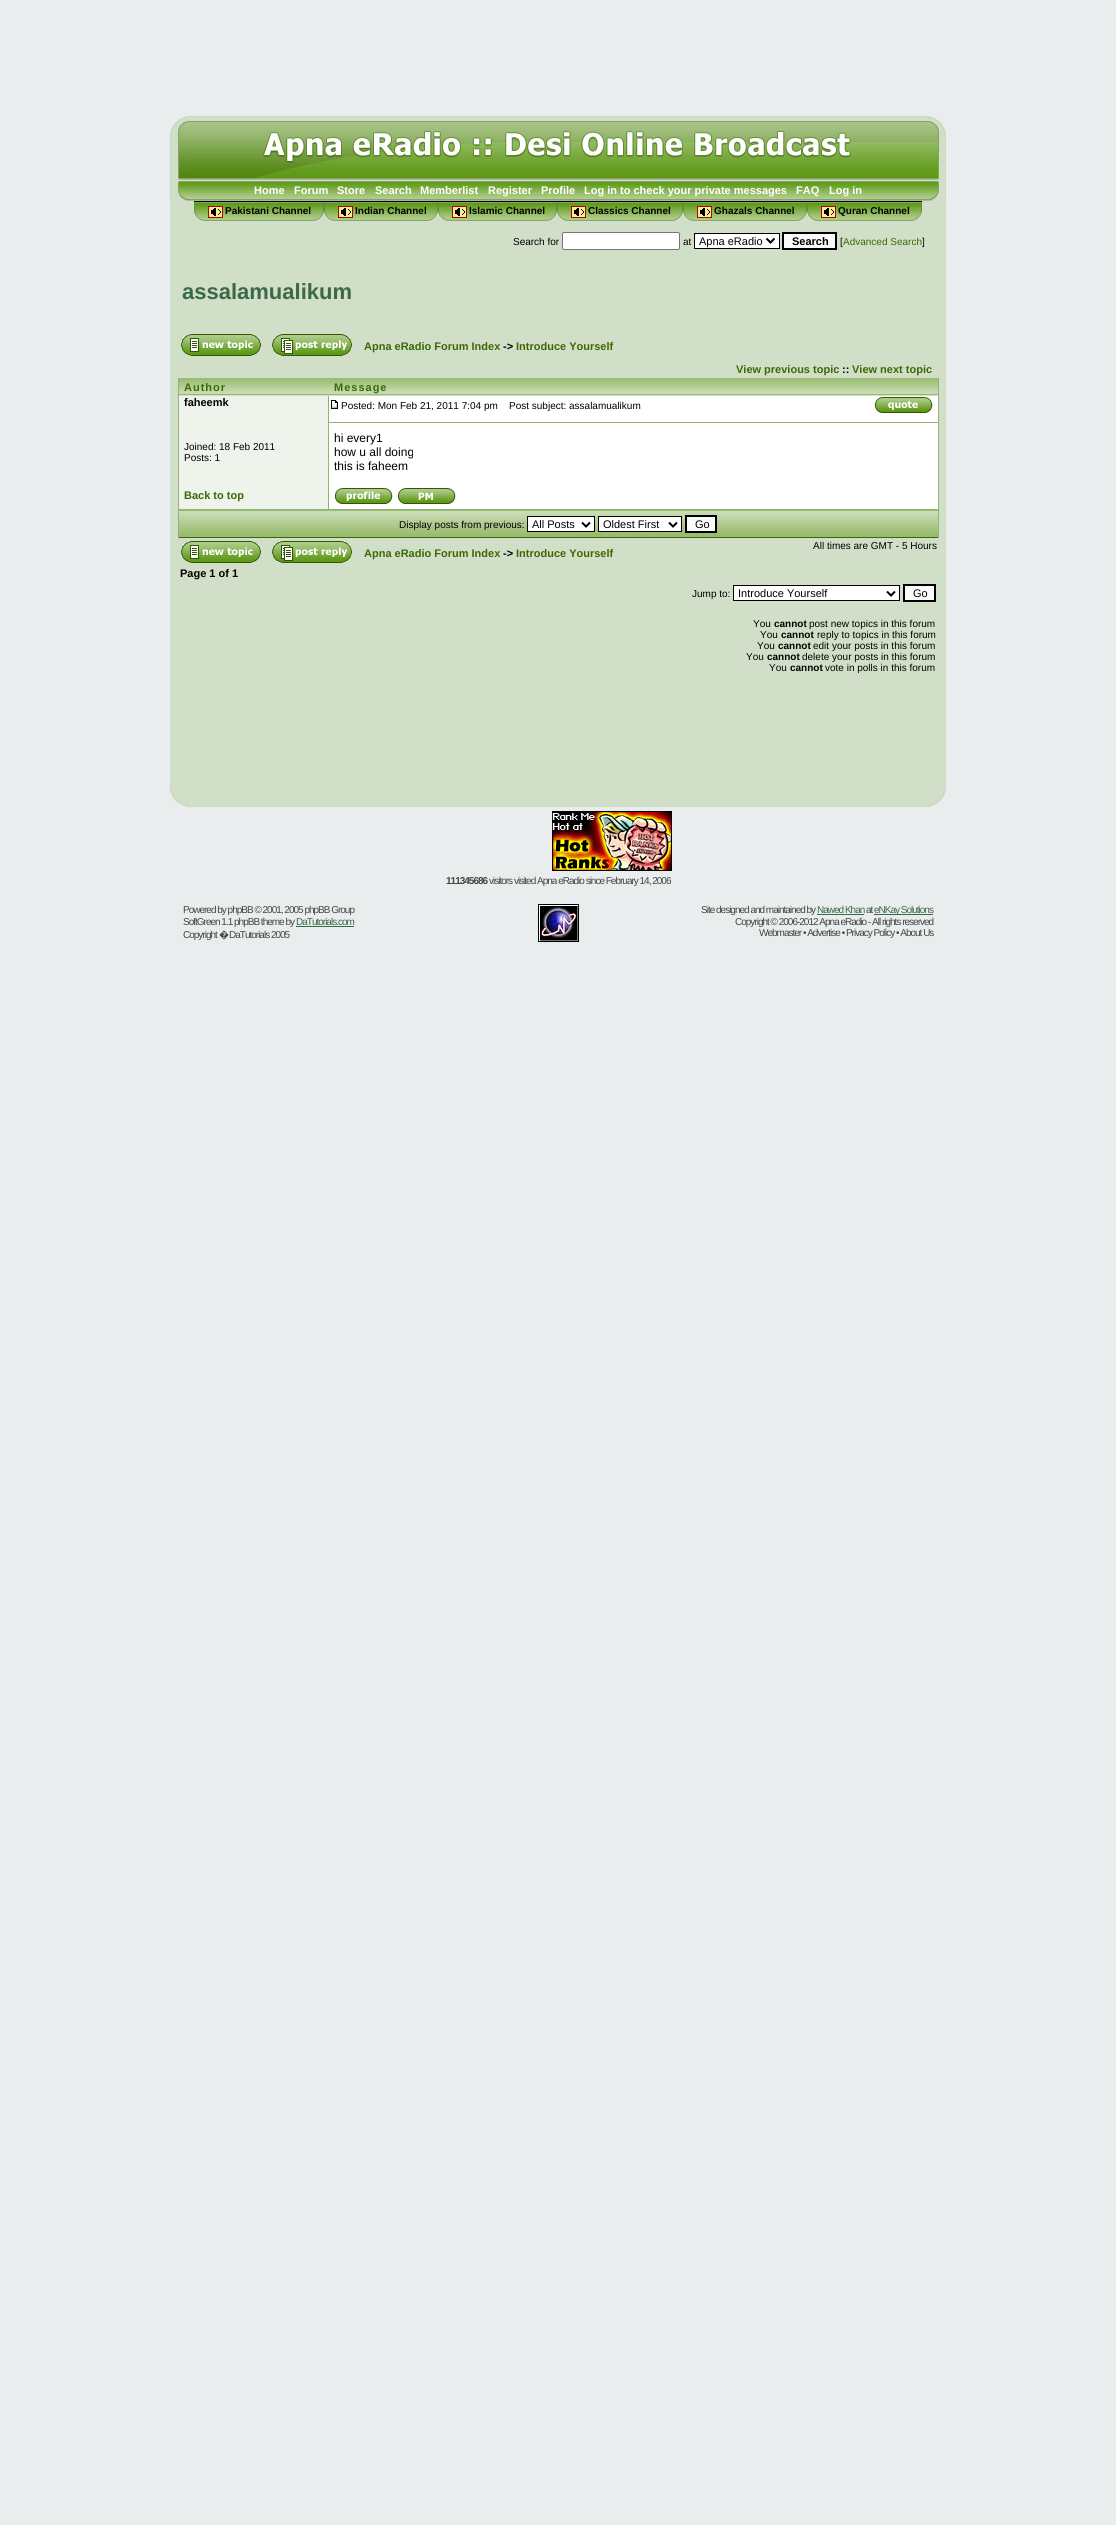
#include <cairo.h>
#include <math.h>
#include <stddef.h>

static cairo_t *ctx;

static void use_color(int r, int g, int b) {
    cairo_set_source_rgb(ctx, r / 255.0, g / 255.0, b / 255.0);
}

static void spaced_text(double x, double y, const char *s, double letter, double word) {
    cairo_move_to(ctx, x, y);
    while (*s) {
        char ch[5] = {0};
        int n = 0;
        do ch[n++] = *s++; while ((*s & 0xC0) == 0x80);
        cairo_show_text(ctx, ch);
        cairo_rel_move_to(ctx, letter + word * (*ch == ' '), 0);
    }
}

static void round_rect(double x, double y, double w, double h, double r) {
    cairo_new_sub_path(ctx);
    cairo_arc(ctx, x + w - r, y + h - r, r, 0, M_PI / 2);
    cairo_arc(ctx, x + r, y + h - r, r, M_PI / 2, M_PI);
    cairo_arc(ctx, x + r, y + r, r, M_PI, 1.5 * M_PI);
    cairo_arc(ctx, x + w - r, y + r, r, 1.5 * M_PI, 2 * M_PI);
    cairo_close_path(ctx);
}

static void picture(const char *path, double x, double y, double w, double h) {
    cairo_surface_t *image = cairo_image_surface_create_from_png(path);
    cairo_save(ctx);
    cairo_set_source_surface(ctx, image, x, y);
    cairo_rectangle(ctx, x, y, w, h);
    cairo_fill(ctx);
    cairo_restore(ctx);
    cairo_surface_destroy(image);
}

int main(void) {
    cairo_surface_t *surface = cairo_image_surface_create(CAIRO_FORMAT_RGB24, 1116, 2525);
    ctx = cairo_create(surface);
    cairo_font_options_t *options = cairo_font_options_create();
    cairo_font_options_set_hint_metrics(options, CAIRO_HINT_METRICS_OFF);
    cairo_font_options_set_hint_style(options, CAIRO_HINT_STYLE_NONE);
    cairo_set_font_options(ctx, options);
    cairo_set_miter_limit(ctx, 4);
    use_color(234, 237, 238);
    cairo_paint(ctx);
    use_color(210, 223, 200);
    cairo_rectangle(ctx, 170, 201, 776, 606);
    cairo_fill(ctx);
    picture("img1.png", 189, 116, 5, 85);
    picture("img2.png", 170, 116, 19, 85);
    picture("img3.png", 194, 116, 728, 68);
    picture("img4.png", 194, 184, 728, 17);
    cairo_select_font_face(ctx, "Liberation Sans", CAIRO_FONT_SLANT_NORMAL, CAIRO_FONT_WEIGHT_BOLD);
    cairo_set_font_size(ctx, 11);
    use_color(255, 255, 255);
    cairo_move_to(ctx, 254, 194);
    cairo_show_text(ctx, "Home");
    cairo_move_to(ctx, 294, 194);
    cairo_show_text(ctx, "Forum");
    cairo_move_to(ctx, 337, 194);
    cairo_show_text(ctx, "Store");
    cairo_move_to(ctx, 375, 194);
    cairo_show_text(ctx, "Search");
    cairo_move_to(ctx, 420, 194);
    cairo_show_text(ctx, "Memberlist");
    cairo_move_to(ctx, 488, 194);
    cairo_show_text(ctx, "Register");
    cairo_move_to(ctx, 541, 194);
    cairo_show_text(ctx, "Profile");
    cairo_move_to(ctx, 584, 194);
    cairo_show_text(ctx, "Log in to check your private messages");
    cairo_move_to(ctx, 796, 194);
    cairo_show_text(ctx, "FAQ");
    cairo_move_to(ctx, 829, 194);
    cairo_show_text(ctx, "Log in");
    picture("img5.png", 922, 116, 5, 85);
    picture("img6.png", 927, 116, 19, 85);
    use_color(0, 0, 0);
    cairo_rectangle(ctx, 194, 201, 728, 1);
    cairo_fill(ctx);
    picture("img7.png", 194, 202, 12, 19);
    picture("img8.png", 206, 202, 106, 19);
    picture("img9.png", 208, 206, 15, 12);
    cairo_set_font_size(ctx, 10);
    cairo_move_to(ctx, 225, 214);
    cairo_show_text(ctx, "Pakistani Channel");
    picture("img10.png", 312, 202, 12, 19);
    picture("img7.png", 324, 202, 12, 19);
    picture("img11.png", 336, 202, 90, 19);
    picture("img9.png", 338, 206, 15, 12);
    cairo_move_to(ctx, 355, 214);
    cairo_show_text(ctx, "Indian Channel");
    picture("img10.png", 426, 202, 12, 19);
    picture("img7.png", 438, 202, 12, 19);
    picture("img12.png", 450, 202, 95, 19);
    picture("img9.png", 452, 206, 15, 12);
    cairo_move_to(ctx, 469, 214);
    cairo_show_text(ctx, "Islamic Channel");
    picture("img10.png", 545, 202, 12, 19);
    picture("img7.png", 557, 202, 12, 19);
    picture("img13.png", 569, 202, 102, 19);
    picture("img9.png", 571, 206, 15, 12);
    cairo_move_to(ctx, 588, 214);
    cairo_show_text(ctx, "Classics Channel");
    picture("img10.png", 671, 202, 12, 19);
    picture("img7.png", 683, 202, 12, 19);
    picture("img14.png", 695, 202, 100, 19);
    picture("img9.png", 697, 206, 15, 12);
    cairo_move_to(ctx, 714, 214);
    cairo_show_text(ctx, "Ghazals Channel");
    picture("img10.png", 795, 202, 12, 19);
    picture("img7.png", 807, 202, 12, 19);
    picture("img15.png", 819, 202, 91, 19);
    picture("img9.png", 821, 206, 15, 12);
    cairo_move_to(ctx, 838, 214);
    cairo_show_text(ctx, "Quran Channel");
    picture("img10.png", 910, 202, 12, 19);
    cairo_select_font_face(ctx, "Liberation Sans", CAIRO_FONT_SLANT_NORMAL, CAIRO_FONT_WEIGHT_NORMAL);
    cairo_move_to(ctx, 513, 245);
    cairo_show_text(ctx, "Search for");
    use_color(255, 255, 255);
    round_rect(562.5, 232.5, 117, 17, 1.5);
    cairo_fill_preserve(ctx);
    use_color(118, 118, 118);
    cairo_set_line_width(ctx, 1);
    cairo_stroke(ctx);
    use_color(0, 0, 0);
    cairo_move_to(ctx, 683, 245);
    cairo_show_text(ctx, "at");
    use_color(255, 255, 255);
    cairo_rectangle(ctx, 694.5, 233.5, 85, 15);
    cairo_fill_preserve(ctx);
    use_color(0, 0, 0);
    cairo_stroke(ctx);
    cairo_new_path(ctx);
    cairo_move_to(ctx, 766.5, 238.5);
    cairo_line_to(ctx, 770.5, 242.5);
    cairo_line_to(ctx, 774.5, 238.5);
    cairo_set_line_width(ctx, 2);
    cairo_stroke(ctx);
    cairo_set_font_size(ctx, 11);
    cairo_move_to(ctx, 699, 245);
    cairo_show_text(ctx, "Apna eRadio");
    use_color(250, 250, 250);
    cairo_rectangle(ctx, 783, 233, 53, 16);
    cairo_fill_preserve(ctx);
    use_color(0, 0, 0);
    cairo_stroke(ctx);
    cairo_select_font_face(ctx, "Liberation Sans", CAIRO_FONT_SLANT_NORMAL, CAIRO_FONT_WEIGHT_BOLD);
    cairo_move_to(ctx, 792, 245);
    cairo_show_text(ctx, "Search");
    cairo_select_font_face(ctx, "Liberation Sans", CAIRO_FONT_SLANT_NORMAL, CAIRO_FONT_WEIGHT_NORMAL);
    cairo_set_font_size(ctx, 10);
    cairo_move_to(ctx, 840, 245);
    cairo_show_text(ctx, "[");
    use_color(58, 105, 3);
    cairo_move_to(ctx, 843, 245);
    cairo_show_text(ctx, "Advanced Search");
    use_color(0, 0, 0);
    cairo_move_to(ctx, 922, 245);
    cairo_show_text(ctx, "]");
    cairo_select_font_face(ctx, "Liberation Sans", CAIRO_FONT_SLANT_NORMAL, CAIRO_FONT_WEIGHT_BOLD);
    cairo_set_font_size(ctx, 22);
    use_color(58, 105, 72);
    cairo_move_to(ctx, 182, 299);
    cairo_show_text(ctx, "assalamualikum");
    picture("img16.png", 181, 334, 80, 22);
    picture("img17.png", 272, 334, 80, 22);
    cairo_set_font_size(ctx, 11);
    use_color(58, 105, 3);
    cairo_move_to(ctx, 364, 350);
    cairo_show_text(ctx, "Apna eRadio Forum Index");
    use_color(0, 0, 0);
    cairo_move_to(ctx, 503, 350);
    cairo_show_text(ctx, "->");
    use_color(58, 105, 3);
    cairo_move_to(ctx, 516, 350);
    cairo_show_text(ctx, "Introduce Yourself");
    cairo_move_to(ctx, 736, 373);
    cairo_show_text(ctx, "View previous topic");
    use_color(0, 0, 0);
    cairo_move_to(ctx, 842, 373);
    cairo_show_text(ctx, "::");
    use_color(58, 105, 3);
    cairo_move_to(ctx, 852, 373);
    cairo_show_text(ctx, "View next topic");
    picture("img18.png", 179, 378, 150, 17);
    use_color(149, 176, 121);
    cairo_rectangle(ctx, 178, 378, 1, 131);
    cairo_fill(ctx);
    use_color(58, 105, 3);
    spaced_text(184, 391, "Author", 1, 0);
    picture("img19.png", 329, 378, 609, 17);
    use_color(149, 176, 121);
    cairo_rectangle(ctx, 938, 378, 1, 131);
    cairo_fill(ctx);
    use_color(58, 105, 3);
    spaced_text(334, 391, "Message", 1, 0);
    use_color(238, 243, 235);
    cairo_rectangle(ctx, 179, 396, 149, 113);
    cairo_fill(ctx);
    use_color(149, 176, 121);
    cairo_rectangle(ctx, 328, 396, 1, 113);
    cairo_fill(ctx);
    use_color(0, 0, 0);
    cairo_move_to(ctx, 184, 406);
    cairo_show_text(ctx, "faheemk");
    cairo_select_font_face(ctx, "Liberation Sans", CAIRO_FONT_SLANT_NORMAL, CAIRO_FONT_WEIGHT_NORMAL);
    cairo_set_font_size(ctx, 10);
    cairo_move_to(ctx, 184, 450);
    cairo_show_text(ctx, "Joined: 18 Feb 2011");
    cairo_move_to(ctx, 184, 461);
    cairo_show_text(ctx, "Posts: 1");
    use_color(255, 255, 255);
    cairo_rectangle(ctx, 329, 396, 609, 113);
    cairo_fill(ctx);
    picture("img20.png", 331, 400, 7, 9);
    use_color(0, 0, 0);
    cairo_move_to(ctx, 341, 409);
    cairo_show_text(ctx, "Posted: Mon Feb 21, 2011 7:04 pm");
    cairo_move_to(ctx, 509, 409);
    cairo_show_text(ctx, "Post subject: assalamualikum");
    picture("img21.png", 874, 397, 59, 16);
    use_color(149, 176, 121);
    cairo_rectangle(ctx, 329, 422, 609, 1);
    cairo_fill(ctx);
    cairo_set_font_size(ctx, 12);
    use_color(0, 0, 0);
    cairo_move_to(ctx, 334, 442);
    cairo_show_text(ctx, "hi every1");
    cairo_move_to(ctx, 334, 456);
    cairo_show_text(ctx, "how u all doing");
    cairo_move_to(ctx, 334, 470);
    cairo_show_text(ctx, "this is faheem");
    cairo_select_font_face(ctx, "Liberation Sans", CAIRO_FONT_SLANT_NORMAL, CAIRO_FONT_WEIGHT_BOLD);
    cairo_set_font_size(ctx, 11);
    use_color(58, 105, 3);
    cairo_move_to(ctx, 184, 499);
    cairo_show_text(ctx, "Back to top");
    picture("img22.png", 334, 488, 59, 16);
    picture("img23.png", 397, 488, 59, 16);
    use_color(149, 176, 121);
    cairo_rectangle(ctx, 178, 509, 761, 1);
    cairo_fill(ctx);
    picture("img24.png", 179, 510, 759, 28);
    cairo_rectangle(ctx, 938, 510, 1, 28);
    cairo_fill(ctx);
    cairo_rectangle(ctx, 178, 510, 1, 28);
    cairo_fill(ctx);
    cairo_select_font_face(ctx, "Liberation Sans", CAIRO_FONT_SLANT_NORMAL, CAIRO_FONT_WEIGHT_NORMAL);
    cairo_set_font_size(ctx, 10);
    use_color(0, 0, 0);
    cairo_move_to(ctx, 399, 528);
    cairo_show_text(ctx, "Display posts from previous:");
    use_color(255, 255, 255);
    cairo_rectangle(ctx, 527.5, 516.5, 67, 15);
    cairo_fill_preserve(ctx);
    use_color(0, 0, 0);
    cairo_set_line_width(ctx, 1);
    cairo_stroke(ctx);
    cairo_new_path(ctx);
    cairo_move_to(ctx, 582, 522.5);
    cairo_line_to(ctx, 586, 526.5);
    cairo_line_to(ctx, 590, 522.5);
    cairo_set_line_width(ctx, 2);
    cairo_stroke(ctx);
    cairo_set_font_size(ctx, 11);
    cairo_move_to(ctx, 532, 528);
    cairo_show_text(ctx, "All Posts");
    use_color(255, 255, 255);
    cairo_rectangle(ctx, 598.5, 516.5, 83, 15);
    cairo_fill_preserve(ctx);
    use_color(0, 0, 0);
    cairo_set_line_width(ctx, 1);
    cairo_stroke(ctx);
    cairo_new_path(ctx);
    cairo_move_to(ctx, 669, 522.5);
    cairo_line_to(ctx, 673, 526.5);
    cairo_line_to(ctx, 677, 522.5);
    cairo_set_line_width(ctx, 2);
    cairo_stroke(ctx);
    cairo_move_to(ctx, 603, 528);
    cairo_show_text(ctx, "Oldest First");
    use_color(250, 250, 250);
    cairo_rectangle(ctx, 686, 516, 30, 16);
    cairo_fill_preserve(ctx);
    use_color(0, 0, 0);
    cairo_stroke(ctx);
    cairo_move_to(ctx, 695, 528);
    cairo_show_text(ctx, "Go");
    picture("img16.png", 181, 541, 80, 22);
    picture("img17.png", 272, 541, 80, 22);
    cairo_set_font_size(ctx, 10);
    cairo_move_to(ctx, 813, 549);
    cairo_show_text(ctx, "All times are GMT - 5 Hours");
    cairo_select_font_face(ctx, "Liberation Sans", CAIRO_FONT_SLANT_NORMAL, CAIRO_FONT_WEIGHT_BOLD);
    cairo_set_font_size(ctx, 11);
    use_color(58, 105, 3);
    cairo_move_to(ctx, 364, 557);
    cairo_show_text(ctx, "Apna eRadio Forum Index");
    use_color(0, 0, 0);
    cairo_move_to(ctx, 503, 557);
    cairo_show_text(ctx, "->");
    use_color(58, 105, 3);
    cairo_move_to(ctx, 516, 557);
    cairo_show_text(ctx, "Introduce Yourself");
    use_color(0, 0, 0);
    cairo_move_to(ctx, 180, 577);
    cairo_show_text(ctx, "Page 1 of 1");
    cairo_select_font_face(ctx, "Liberation Sans", CAIRO_FONT_SLANT_NORMAL, CAIRO_FONT_WEIGHT_NORMAL);
    cairo_set_font_size(ctx, 10);
    cairo_move_to(ctx, 692, 597);
    cairo_show_text(ctx, "Jump to:");
    use_color(255, 255, 255);
    cairo_rectangle(ctx, 733.5, 585.5, 166, 15);
    cairo_fill_preserve(ctx);
    use_color(0, 0, 0);
    cairo_set_line_width(ctx, 1);
    cairo_stroke(ctx);
    cairo_new_path(ctx);
    cairo_move_to(ctx, 887, 591.5);
    cairo_line_to(ctx, 891, 595.5);
    cairo_line_to(ctx, 895, 591.5);
    cairo_set_line_width(ctx, 2);
    cairo_stroke(ctx);
    cairo_set_font_size(ctx, 11);
    cairo_move_to(ctx, 738, 597);
    cairo_show_text(ctx, "Introduce Yourself");
    use_color(250, 250, 250);
    cairo_rectangle(ctx, 904, 585, 31, 16);
    cairo_fill_preserve(ctx);
    use_color(0, 0, 0);
    cairo_stroke(ctx);
    cairo_move_to(ctx, 913, 597);
    cairo_show_text(ctx, "Go");
    cairo_set_font_size(ctx, 10);
    cairo_move_to(ctx, 753, 627);
    cairo_show_text(ctx, "You");
    cairo_select_font_face(ctx, "Liberation Sans", CAIRO_FONT_SLANT_NORMAL, CAIRO_FONT_WEIGHT_BOLD);
    cairo_move_to(ctx, 774, 627);
    cairo_show_text(ctx, "cannot");
    cairo_select_font_face(ctx, "Liberation Sans", CAIRO_FONT_SLANT_NORMAL, CAIRO_FONT_WEIGHT_NORMAL);
    cairo_move_to(ctx, 809, 627);
    cairo_show_text(ctx, "post new topics in this forum");
    cairo_move_to(ctx, 760, 638);
    cairo_show_text(ctx, "You");
    cairo_select_font_face(ctx, "Liberation Sans", CAIRO_FONT_SLANT_NORMAL, CAIRO_FONT_WEIGHT_BOLD);
    cairo_move_to(ctx, 781, 638);
    cairo_show_text(ctx, "cannot");
    cairo_select_font_face(ctx, "Liberation Sans", CAIRO_FONT_SLANT_NORMAL, CAIRO_FONT_WEIGHT_NORMAL);
    cairo_move_to(ctx, 817, 638);
    cairo_show_text(ctx, "reply to topics in this forum");
    cairo_move_to(ctx, 757, 649);
    cairo_show_text(ctx, "You");
    cairo_select_font_face(ctx, "Liberation Sans", CAIRO_FONT_SLANT_NORMAL, CAIRO_FONT_WEIGHT_BOLD);
    cairo_move_to(ctx, 778, 649);
    cairo_show_text(ctx, "cannot");
    cairo_select_font_face(ctx, "Liberation Sans", CAIRO_FONT_SLANT_NORMAL, CAIRO_FONT_WEIGHT_NORMAL);
    cairo_move_to(ctx, 813, 649);
    cairo_show_text(ctx, "edit your posts in this forum");
    cairo_move_to(ctx, 746, 660);
    cairo_show_text(ctx, "You");
    cairo_select_font_face(ctx, "Liberation Sans", CAIRO_FONT_SLANT_NORMAL, CAIRO_FONT_WEIGHT_BOLD);
    cairo_move_to(ctx, 767, 660);
    cairo_show_text(ctx, "cannot");
    cairo_select_font_face(ctx, "Liberation Sans", CAIRO_FONT_SLANT_NORMAL, CAIRO_FONT_WEIGHT_NORMAL);
    cairo_move_to(ctx, 802, 660);
    cairo_show_text(ctx, "delete your posts in this forum");
    cairo_move_to(ctx, 769, 671);
    cairo_show_text(ctx, "You");
    cairo_select_font_face(ctx, "Liberation Sans", CAIRO_FONT_SLANT_NORMAL, CAIRO_FONT_WEIGHT_BOLD);
    cairo_move_to(ctx, 790, 671);
    cairo_show_text(ctx, "cannot");
    cairo_select_font_face(ctx, "Liberation Sans", CAIRO_FONT_SLANT_NORMAL, CAIRO_FONT_WEIGHT_NORMAL);
    cairo_move_to(ctx, 825, 671);
    cairo_show_text(ctx, "vote in polls in this forum");
    picture("img25.png", 170, 784, 24, 23);
    picture("img26.png", 922, 784, 24, 23);
    picture("img27.png", 552, 811, 120, 60);
    cairo_select_font_face(ctx, "Liberation Sans", CAIRO_FONT_SLANT_NORMAL, CAIRO_FONT_WEIGHT_BOLD);
    use_color(68, 68, 68);
    spaced_text(446, 884, "111345686", -1, 0);
    cairo_select_font_face(ctx, "Liberation Sans", CAIRO_FONT_SLANT_NORMAL, CAIRO_FONT_WEIGHT_NORMAL);
    spaced_text(489, 884, "visitors visited Apna eRadio since February 14, 2006", -1, 0);
    spaced_text(183, 913, "Powered by phpBB © 2001, 2005 phpBB Group", -1, 0);
    picture("img28.png", 538, 904, 41, 38);
    spaced_text(701, 913, "Site designed and maintained by", -1, 0);
    use_color(58, 105, 72);
    cairo_rectangle(ctx, 817, 914, 47, 1);
    cairo_fill(ctx);
    spaced_text(817, 913, "Nawed Khan", -1, 0);
    use_color(68, 68, 68);
    spaced_text(866, 913, "at", -1, 0);
    use_color(58, 105, 72);
    cairo_rectangle(ctx, 874, 914, 59, 1);
    cairo_fill(ctx);
    spaced_text(874, 913, "eNKay Solutions", -1, 0);
    use_color(68, 68, 68);
    spaced_text(183, 925, "SoftGreen 1.1 phpBB theme by", -1, 0);
    use_color(58, 105, 72);
    cairo_rectangle(ctx, 296, 926, 58, 1);
    cairo_fill(ctx);
    spaced_text(296, 925, "DaTutorials.com", -1, 0);
    use_color(68, 68, 68);
    spaced_text(183, 938, "Copyright", -1, 0);
    cairo_select_font_face(ctx, "Noto Sans", CAIRO_FONT_SLANT_NORMAL, CAIRO_FONT_WEIGHT_NORMAL);
    spaced_text(219, 938, "�", -1, 0);
    cairo_select_font_face(ctx, "Liberation Sans", CAIRO_FONT_SLANT_NORMAL, CAIRO_FONT_WEIGHT_NORMAL);
    spaced_text(229, 938, "DaTutorials 2005", -1, 0);
    spaced_text(735, 925, "Copyright © 2006-2012 Apna eRadio - All rights reserved", -1, 0);
    spaced_text(759, 936, "Webmaster • Advertise • Privacy Policy • About Us", -1, 0);
    cairo_surface_write_to_png(surface, "result.png");
    cairo_font_options_destroy(options);
    cairo_destroy(ctx);
    cairo_surface_destroy(surface);
    return 0;
}
